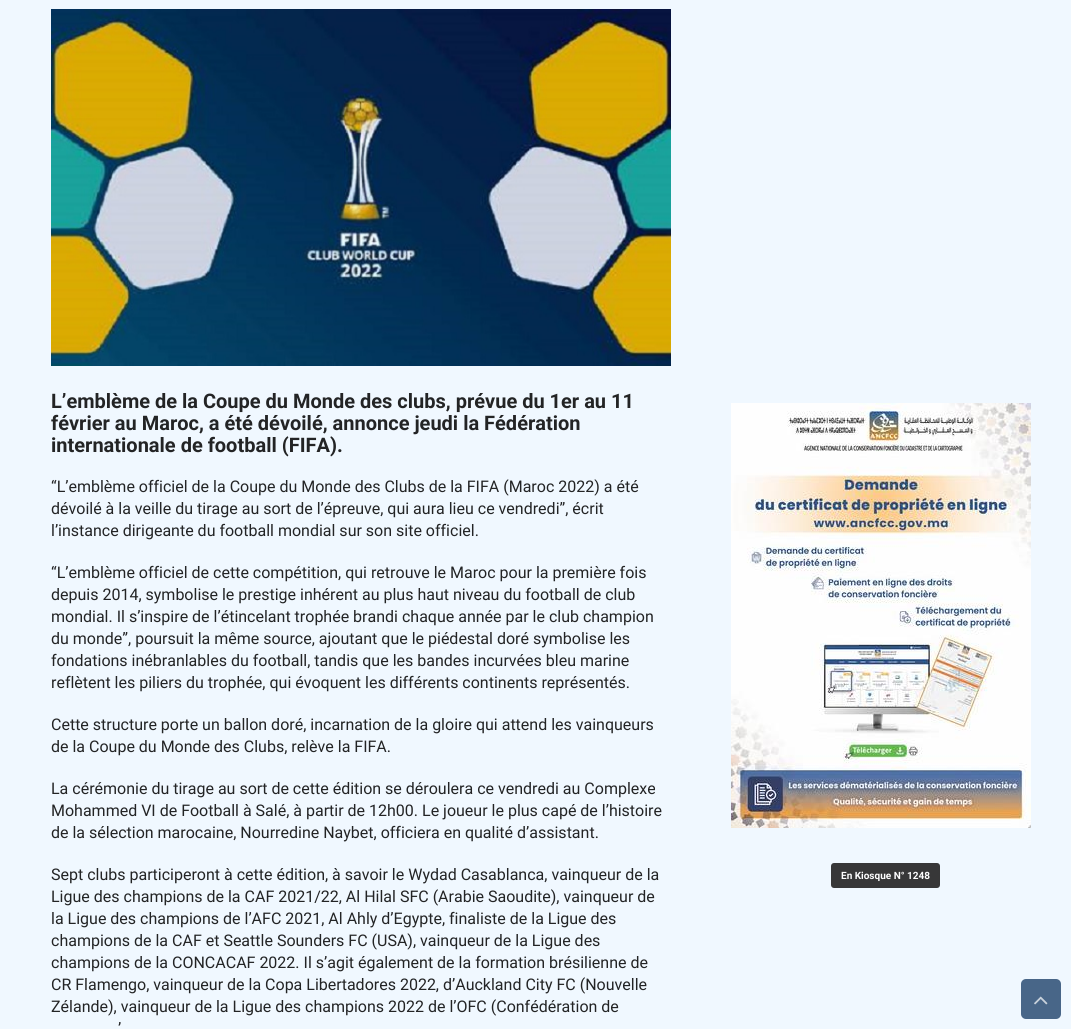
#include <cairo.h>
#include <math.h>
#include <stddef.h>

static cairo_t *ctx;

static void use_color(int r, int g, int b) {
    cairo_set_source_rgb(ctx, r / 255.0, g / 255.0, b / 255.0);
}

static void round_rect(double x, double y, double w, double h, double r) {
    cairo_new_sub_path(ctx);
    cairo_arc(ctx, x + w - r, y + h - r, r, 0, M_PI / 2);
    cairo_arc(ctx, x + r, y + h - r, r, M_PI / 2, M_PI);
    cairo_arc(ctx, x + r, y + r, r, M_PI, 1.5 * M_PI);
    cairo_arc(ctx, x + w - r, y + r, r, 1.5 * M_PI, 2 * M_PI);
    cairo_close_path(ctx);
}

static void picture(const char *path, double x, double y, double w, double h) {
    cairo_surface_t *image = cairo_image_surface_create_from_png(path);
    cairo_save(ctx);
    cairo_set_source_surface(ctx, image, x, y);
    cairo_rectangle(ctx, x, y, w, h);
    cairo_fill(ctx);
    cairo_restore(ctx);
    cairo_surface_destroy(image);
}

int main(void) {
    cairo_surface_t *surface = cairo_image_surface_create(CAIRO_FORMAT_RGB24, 1071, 1029);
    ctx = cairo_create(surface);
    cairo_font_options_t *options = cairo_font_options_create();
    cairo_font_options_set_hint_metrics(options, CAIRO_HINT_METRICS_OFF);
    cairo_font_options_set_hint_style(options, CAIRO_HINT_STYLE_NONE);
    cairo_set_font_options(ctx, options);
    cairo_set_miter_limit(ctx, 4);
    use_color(240, 248, 255);
    cairo_paint(ctx);
    picture("img1.png", 51, 9, 620, 357);
    cairo_select_font_face(ctx, "Roboto", CAIRO_FONT_SLANT_NORMAL, CAIRO_FONT_WEIGHT_BOLD);
    cairo_set_font_size(ctx, 20);
    use_color(35, 36, 37);
    cairo_move_to(ctx, 51, 408);
    cairo_show_text(ctx, "L’emblème de la Coupe du Monde des clubs, prévue du 1er au 11");
    cairo_move_to(ctx, 51, 430);
    cairo_show_text(ctx, "février au Maroc, a été dévoilé, annonce jeudi la Fédération");
    cairo_move_to(ctx, 51, 452);
    cairo_show_text(ctx, "internationale de football (FIFA).");
    cairo_select_font_face(ctx, "Roboto", CAIRO_FONT_SLANT_NORMAL, CAIRO_FONT_WEIGHT_NORMAL);
    cairo_set_font_size(ctx, 16);
    cairo_move_to(ctx, 51, 492);
    cairo_show_text(ctx, "“L’emblème officiel de la Coupe du Monde des Clubs de la FIFA (Maroc 2022) a été");
    cairo_move_to(ctx, 51, 514);
    cairo_show_text(ctx, "dévoilé à la veille du tirage au sort de l’épreuve, qui aura lieu ce vendredi”, écrit");
    cairo_move_to(ctx, 51, 536);
    cairo_show_text(ctx, "l’instance dirigeante du football mondial sur son site officiel.");
    cairo_move_to(ctx, 51, 578);
    cairo_show_text(ctx, "“L’emblème officiel de cette compétition, qui retrouve le Maroc pour la première fois");
    cairo_move_to(ctx, 51, 600);
    cairo_show_text(ctx, "depuis 2014, symbolise le prestige inhérent au plus haut niveau du football de club");
    cairo_move_to(ctx, 51, 622);
    cairo_show_text(ctx, "mondial. Il s’inspire de l’étincelant trophée brandi chaque année par le club champion");
    cairo_move_to(ctx, 51, 644);
    cairo_show_text(ctx, "du monde”, poursuit la même source, ajoutant que le piédestal doré symbolise les");
    cairo_move_to(ctx, 51, 666);
    cairo_show_text(ctx, "fondations inébranlables du football, tandis que les bandes incurvées bleu marine");
    cairo_move_to(ctx, 51, 688);
    cairo_show_text(ctx, "reflètent les piliers du trophée, qui évoquent les différents continents représentés.");
    cairo_move_to(ctx, 51, 730);
    cairo_show_text(ctx, "Cette structure porte un ballon doré, incarnation de la gloire qui attend les vainqueurs");
    cairo_move_to(ctx, 51, 752);
    cairo_show_text(ctx, "de la Coupe du Monde des Clubs, relève la FIFA.");
    cairo_move_to(ctx, 51, 794);
    cairo_show_text(ctx, "La cérémonie du tirage au sort de cette édition se déroulera ce vendredi au Complexe");
    cairo_move_to(ctx, 51, 816);
    cairo_show_text(ctx, "Mohammed VI de Football à Salé, à partir de 12h00. Le joueur le plus capé de l’histoire");
    cairo_move_to(ctx, 51, 838);
    cairo_show_text(ctx, "de la sélection marocaine, Nourredine Naybet, officiera en qualité d’assistant.");
    cairo_move_to(ctx, 51, 880);
    cairo_show_text(ctx, "Sept clubs participeront à cette édition, à savoir le Wydad Casablanca, vainqueur de la");
    cairo_move_to(ctx, 51, 902);
    cairo_show_text(ctx, "Ligue des champions de la CAF 2021/22, Al Hilal SFC (Arabie Saoudite), vainqueur de");
    cairo_move_to(ctx, 51, 924);
    cairo_show_text(ctx, "la Ligue des champions de l’AFC 2021, Al Ahly d’Egypte, finaliste de la Ligue des");
    cairo_move_to(ctx, 51, 946);
    cairo_show_text(ctx, "champions de la CAF et Seattle Sounders FC (USA), vainqueur de la Ligue des");
    cairo_move_to(ctx, 51, 968);
    cairo_show_text(ctx, "champions de la CONCACAF 2022. Il s’agit également de la formation brésilienne de");
    cairo_move_to(ctx, 51, 990);
    cairo_show_text(ctx, "CR Flamengo, vainqueur de la Copa Libertadores 2022, d’Auckland City FC (Nouvelle");
    cairo_move_to(ctx, 51, 1012);
    cairo_show_text(ctx, "Zélande), vainqueur de la Ligue des champions 2022 de l’OFC (Confédération de");
    cairo_move_to(ctx, 118, 1034);
    cairo_show_text(ctx, "’");
    picture("img2.png", 731, 403, 300, 425);
    use_color(55, 55, 56);
    round_rect(831, 863, 109, 25, 3);
    cairo_fill(ctx);
    cairo_select_font_face(ctx, "Roboto", CAIRO_FONT_SLANT_NORMAL, CAIRO_FONT_WEIGHT_BOLD);
    cairo_set_font_size(ctx, 10);
    use_color(254, 254, 255);
    cairo_move_to(ctx, 841, 879);
    cairo_show_text(ctx, "En Kiosque N° 1248");
    use_color(72, 102, 136);
    round_rect(1021, 979, 40, 40, 5);
    cairo_fill(ctx);
    picture("img3.png", 1034, 996, 14, 9);
    cairo_surface_write_to_png(surface, "result.png");
    cairo_font_options_destroy(options);
    cairo_destroy(ctx);
    cairo_surface_destroy(surface);
    return 0;
}
